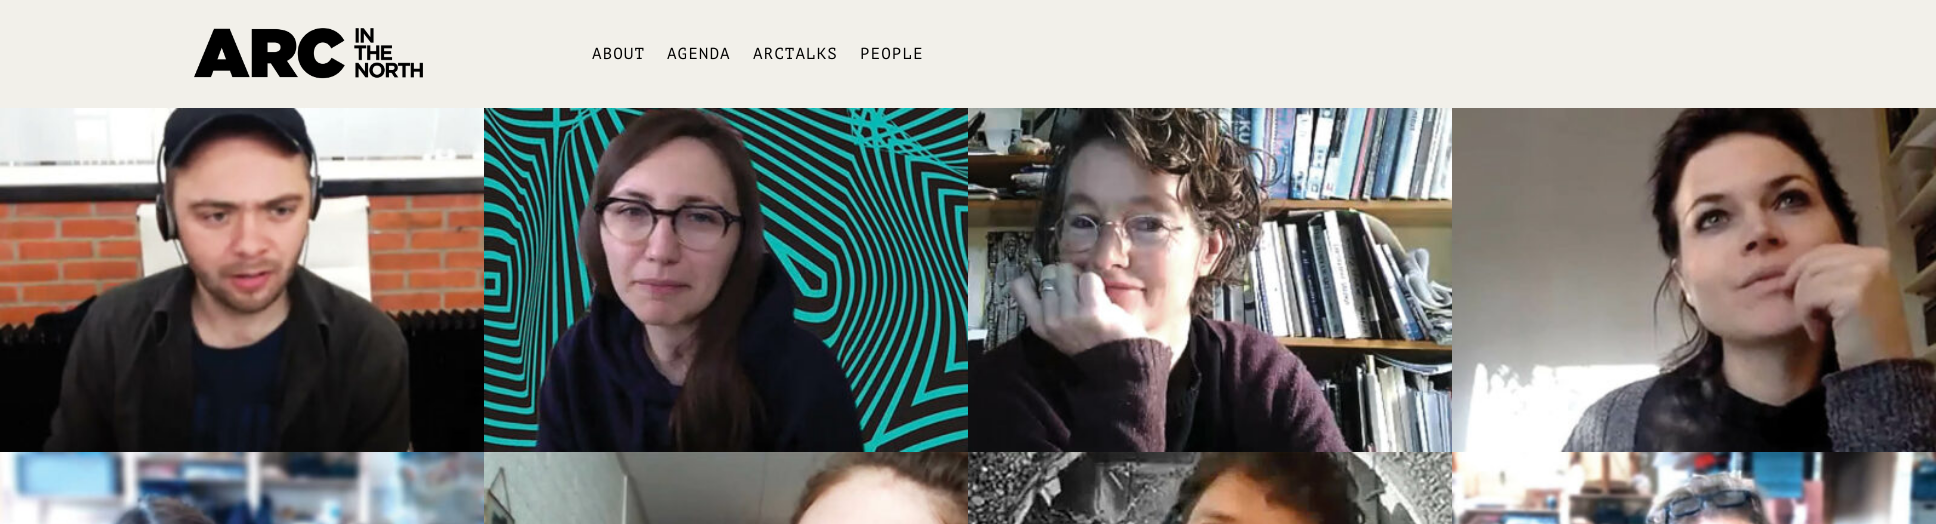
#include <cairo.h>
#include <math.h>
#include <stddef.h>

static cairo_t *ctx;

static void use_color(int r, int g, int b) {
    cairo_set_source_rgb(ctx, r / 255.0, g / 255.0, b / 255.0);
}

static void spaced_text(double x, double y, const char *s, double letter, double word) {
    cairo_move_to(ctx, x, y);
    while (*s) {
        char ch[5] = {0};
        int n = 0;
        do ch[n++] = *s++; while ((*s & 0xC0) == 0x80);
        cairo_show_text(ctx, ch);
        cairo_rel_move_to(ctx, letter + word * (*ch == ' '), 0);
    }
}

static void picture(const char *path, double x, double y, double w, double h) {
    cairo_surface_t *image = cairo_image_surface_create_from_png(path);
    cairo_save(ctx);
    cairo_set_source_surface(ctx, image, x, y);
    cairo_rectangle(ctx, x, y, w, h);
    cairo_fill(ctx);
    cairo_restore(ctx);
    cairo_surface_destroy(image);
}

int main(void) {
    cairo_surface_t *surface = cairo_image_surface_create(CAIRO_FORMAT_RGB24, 1936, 524);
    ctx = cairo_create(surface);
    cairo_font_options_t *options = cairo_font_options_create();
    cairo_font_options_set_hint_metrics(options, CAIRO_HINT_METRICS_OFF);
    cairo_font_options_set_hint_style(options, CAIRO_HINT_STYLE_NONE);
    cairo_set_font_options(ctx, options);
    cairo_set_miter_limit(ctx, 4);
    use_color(242, 240, 234);
    cairo_paint(ctx);
    picture("img1.png", 194, 28, 229, 51);
    cairo_select_font_face(ctx, "PT Mono", CAIRO_FONT_SLANT_NORMAL, CAIRO_FONT_WEIGHT_NORMAL);
    cairo_set_font_size(ctx, 16);
    use_color(0, 0, 0);
    spaced_text(592, 59, "ABOUT", 1, 0);
    spaced_text(667, 59, "AGENDA", 1, 0);
    spaced_text(753, 59, "ARCTALKS", 1, 0);
    spaced_text(860, 59, "PEOPLE", 1, 0);
    picture("img2.png", 0, 108, 484, 344);
    picture("img3.png", 484, 108, 484, 344);
    picture("img4.png", 968, 108, 484, 344);
    picture("img5.png", 1452, 108, 484, 344);
    picture("img6.png", 0, 452, 484, 72);
    picture("img7.png", 484, 452, 484, 72);
    picture("img8.png", 968, 452, 484, 72);
    picture("img9.png", 1452, 452, 484, 72);
    cairo_surface_write_to_png(surface, "result.png");
    cairo_font_options_destroy(options);
    cairo_destroy(ctx);
    cairo_surface_destroy(surface);
    return 0;
}
